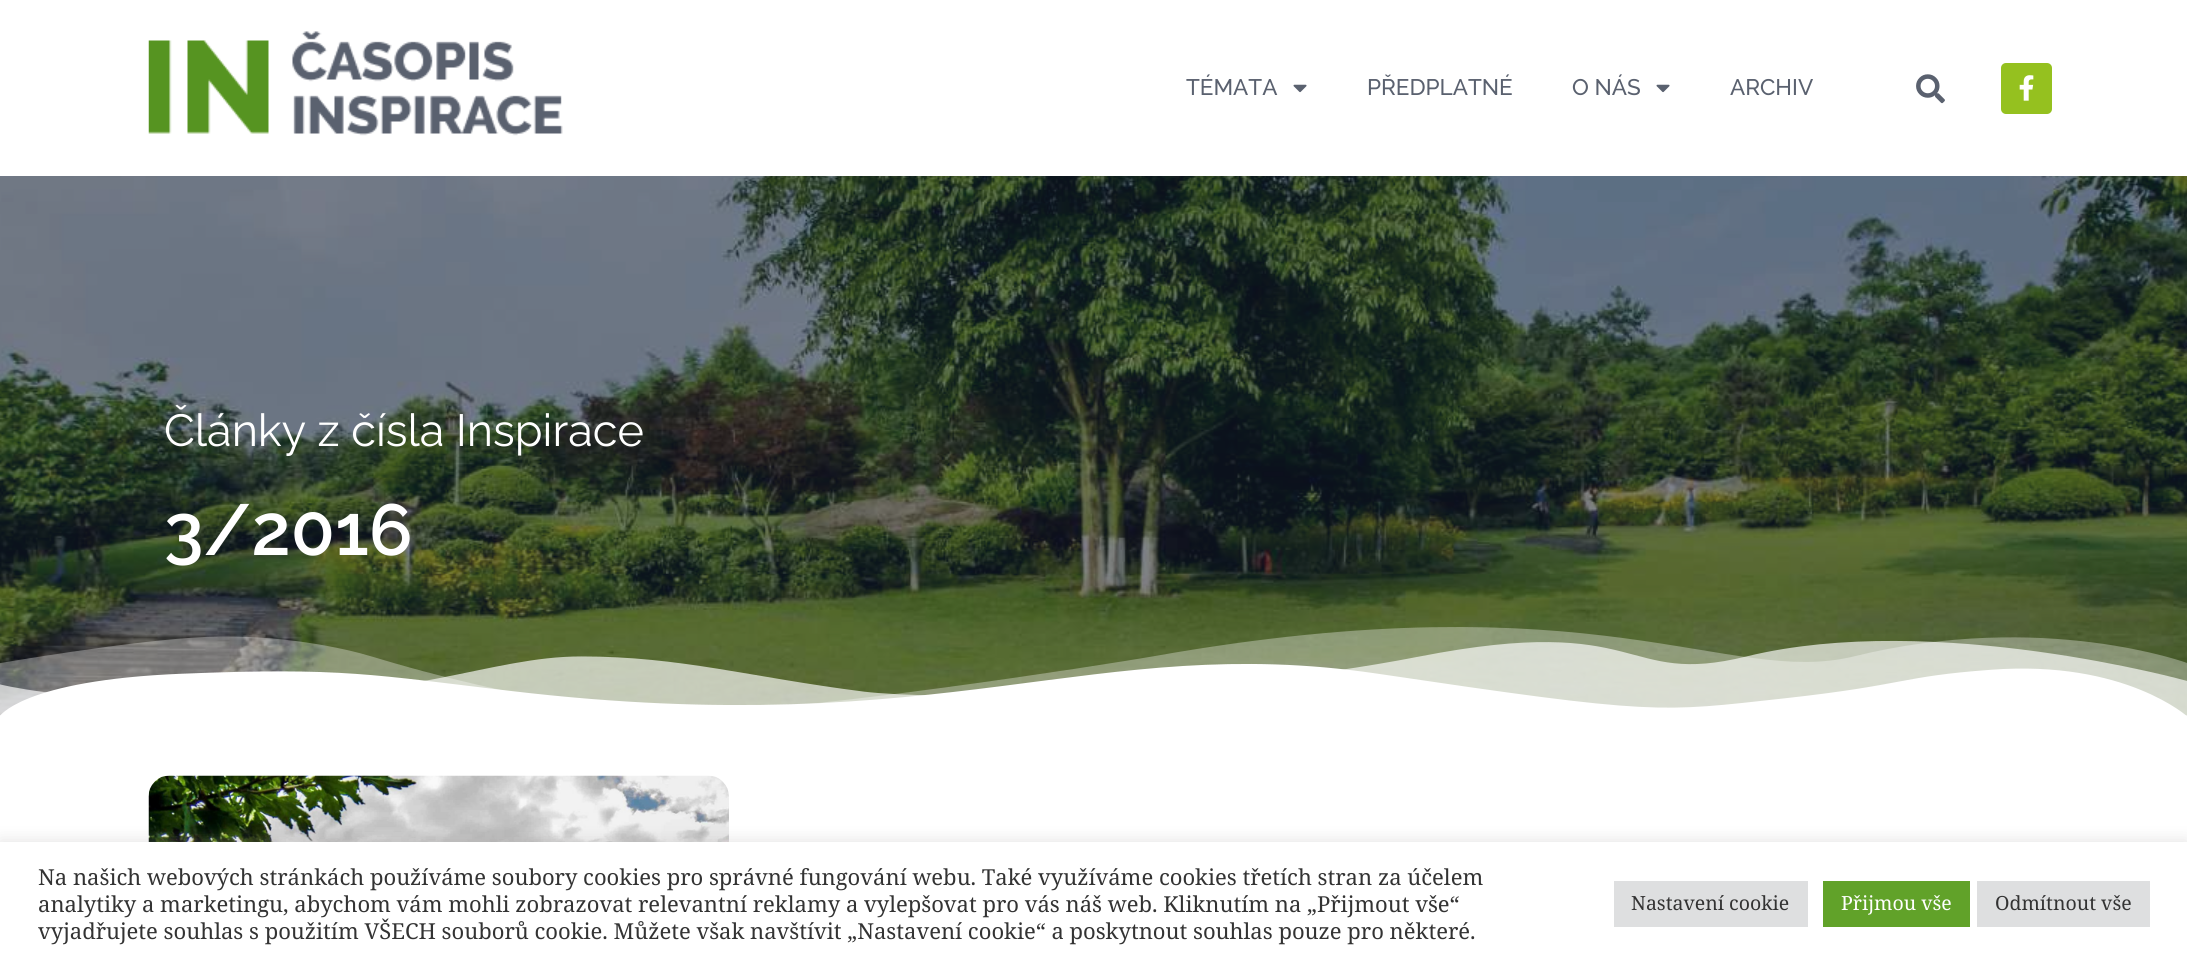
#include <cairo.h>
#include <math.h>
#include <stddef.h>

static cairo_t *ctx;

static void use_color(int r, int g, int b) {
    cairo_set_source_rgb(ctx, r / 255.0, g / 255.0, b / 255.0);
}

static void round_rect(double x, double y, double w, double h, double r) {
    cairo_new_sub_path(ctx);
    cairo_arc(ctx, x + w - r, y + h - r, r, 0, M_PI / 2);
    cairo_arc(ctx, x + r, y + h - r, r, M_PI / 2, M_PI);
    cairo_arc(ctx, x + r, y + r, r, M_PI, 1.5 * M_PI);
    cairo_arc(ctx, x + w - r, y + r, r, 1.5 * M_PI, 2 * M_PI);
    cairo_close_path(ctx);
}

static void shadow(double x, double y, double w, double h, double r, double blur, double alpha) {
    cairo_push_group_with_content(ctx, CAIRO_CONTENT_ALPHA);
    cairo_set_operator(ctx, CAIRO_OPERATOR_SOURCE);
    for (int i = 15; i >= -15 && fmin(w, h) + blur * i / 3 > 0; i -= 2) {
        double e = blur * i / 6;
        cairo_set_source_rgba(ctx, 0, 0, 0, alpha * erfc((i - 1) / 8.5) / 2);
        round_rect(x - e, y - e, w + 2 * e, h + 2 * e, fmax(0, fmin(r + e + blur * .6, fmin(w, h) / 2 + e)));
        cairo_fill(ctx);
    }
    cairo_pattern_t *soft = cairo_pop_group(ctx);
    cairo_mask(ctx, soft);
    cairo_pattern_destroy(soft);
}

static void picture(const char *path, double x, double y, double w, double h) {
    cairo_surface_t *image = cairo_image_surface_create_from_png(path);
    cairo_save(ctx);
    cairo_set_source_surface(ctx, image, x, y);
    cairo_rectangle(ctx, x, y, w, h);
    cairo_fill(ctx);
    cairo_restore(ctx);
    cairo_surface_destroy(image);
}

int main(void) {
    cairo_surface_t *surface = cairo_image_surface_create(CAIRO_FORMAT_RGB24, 2187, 964);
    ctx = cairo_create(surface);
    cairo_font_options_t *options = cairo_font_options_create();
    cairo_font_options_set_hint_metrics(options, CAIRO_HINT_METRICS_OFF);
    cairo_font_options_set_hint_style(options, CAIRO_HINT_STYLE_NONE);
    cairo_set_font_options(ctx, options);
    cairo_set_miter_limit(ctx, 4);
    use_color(255, 255, 255);
    cairo_paint(ctx);
    picture("img1.png", 148, 31, 415, 105);
    cairo_select_font_face(ctx, "Raleway Medium", CAIRO_FONT_SLANT_NORMAL, CAIRO_FONT_WEIGHT_NORMAL);
    cairo_set_font_size(ctx, 22.5);
    use_color(90, 97, 111);
    cairo_move_to(ctx, 1186, 95);
    cairo_show_text(ctx, "TÉMATA");
    picture("img2.png", 1293, 84, 14, 9);
    cairo_move_to(ctx, 1367, 95);
    cairo_show_text(ctx, "PŘEDPLATNÉ");
    cairo_move_to(ctx, 1572, 95);
    cairo_show_text(ctx, "O NÁS");
    picture("img2.png", 1656, 84, 14, 9);
    cairo_move_to(ctx, 1730, 95);
    cairo_show_text(ctx, "ARCHIV");
    picture("img3.png", 1916, 74, 29, 30);
    use_color(149, 193, 31);
    round_rect(2001, 63, 51, 51, 5);
    cairo_fill(ctx);
    picture("img4.png", 2019, 75, 15, 26);
    picture("img5.png", 0, 176, 2187, 540);
    cairo_select_font_face(ctx, "Raleway", CAIRO_FONT_SLANT_NORMAL, CAIRO_FONT_WEIGHT_NORMAL);
    cairo_set_font_size(ctx, 45);
    use_color(255, 255, 255);
    cairo_move_to(ctx, 164, 446);
    cairo_show_text(ctx, "Články z čísla Inspirace");
    cairo_select_font_face(ctx, "Raleway SemiBold", CAIRO_FONT_SLANT_NORMAL, CAIRO_FONT_WEIGHT_NORMAL);
    cairo_set_font_size(ctx, 72);
    cairo_move_to(ctx, 164, 555);
    cairo_show_text(ctx, "3/2016");
    picture("img6.png", 0, 627, 2187, 89);
    picture("img7.png", 148, 775, 581, 67);
    use_color(172, 171, 171);
    shadow(0, 840, 2187, 123, 0, 7.5, 0.3);
    use_color(255, 255, 255);
    cairo_rectangle(ctx, 0, 842, 2187, 122);
    cairo_fill(ctx);
    cairo_select_font_face(ctx, "Noto Serif", CAIRO_FONT_SLANT_NORMAL, CAIRO_FONT_WEIGHT_NORMAL);
    cairo_set_font_size(ctx, 22);
    use_color(51, 51, 51);
    cairo_move_to(ctx, 38, 885);
    cairo_show_text(ctx, "Na našich webových stránkách používáme soubory cookies pro správné fungování webu. Také využíváme cookies třetích stran za účelem");
    cairo_move_to(ctx, 38, 912);
    cairo_show_text(ctx, "analytiky a marketingu, abychom vám mohli zobrazovat relevantní reklamy a vylepšovat pro vás náš web. Kliknutím na „Přijmout vše“");
    cairo_move_to(ctx, 38, 939);
    cairo_show_text(ctx, "vyjadřujete souhlas s použitím VŠECH souborů cookie. Můžete však navštívit „Nastavení cookie“ a poskytnout souhlas pouze pro některé.");
    use_color(222, 223, 224);
    cairo_rectangle(ctx, 1614, 881, 194, 46);
    cairo_fill(ctx);
    cairo_set_font_size(ctx, 19.5);
    use_color(51, 51, 51);
    cairo_move_to(ctx, 1631, 910);
    cairo_show_text(ctx, "Nastavení cookie");
    use_color(97, 162, 41);
    cairo_rectangle(ctx, 1823, 881, 147, 46);
    cairo_fill(ctx);
    use_color(255, 255, 255);
    cairo_move_to(ctx, 1841, 910);
    cairo_show_text(ctx, "Přijmou vše");
    use_color(222, 223, 224);
    cairo_rectangle(ctx, 1977, 881, 173, 46);
    cairo_fill(ctx);
    use_color(51, 51, 51);
    cairo_move_to(ctx, 1995, 910);
    cairo_show_text(ctx, "Odmítnout vše");
    cairo_surface_write_to_png(surface, "result.png");
    cairo_font_options_destroy(options);
    cairo_destroy(ctx);
    cairo_surface_destroy(surface);
    return 0;
}
